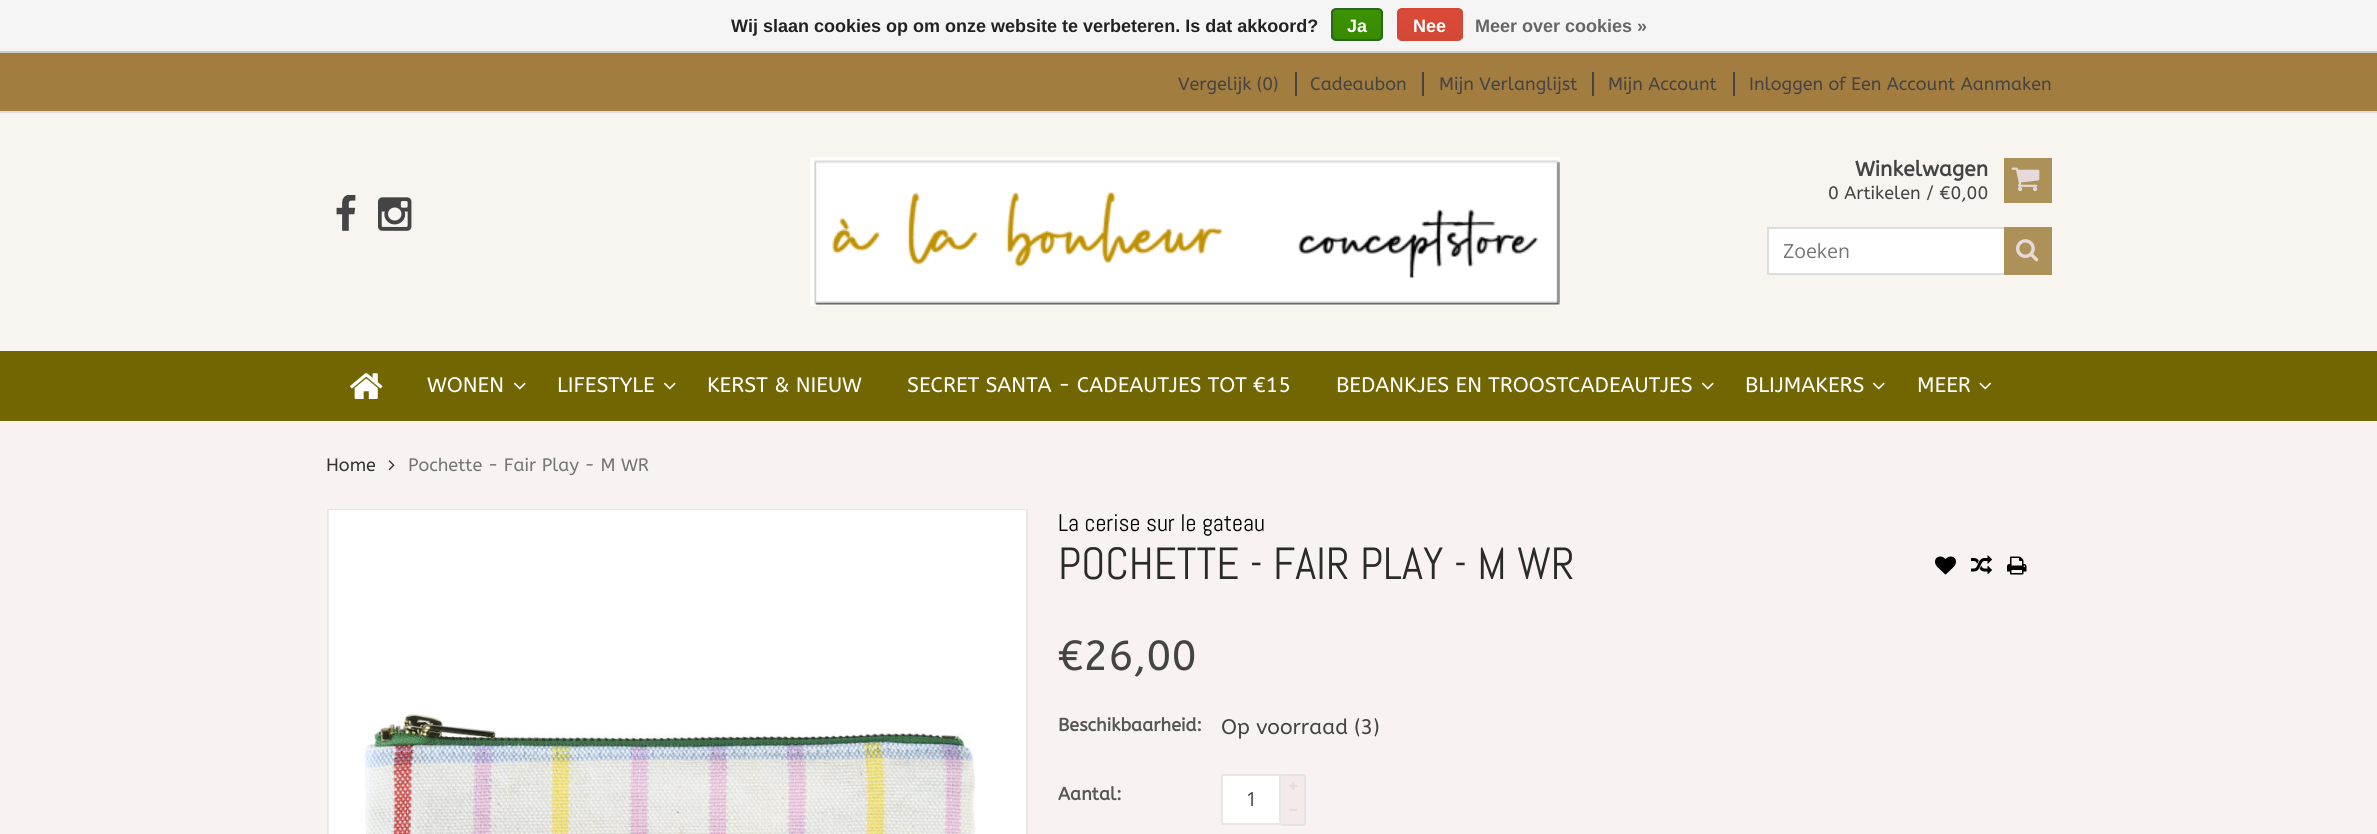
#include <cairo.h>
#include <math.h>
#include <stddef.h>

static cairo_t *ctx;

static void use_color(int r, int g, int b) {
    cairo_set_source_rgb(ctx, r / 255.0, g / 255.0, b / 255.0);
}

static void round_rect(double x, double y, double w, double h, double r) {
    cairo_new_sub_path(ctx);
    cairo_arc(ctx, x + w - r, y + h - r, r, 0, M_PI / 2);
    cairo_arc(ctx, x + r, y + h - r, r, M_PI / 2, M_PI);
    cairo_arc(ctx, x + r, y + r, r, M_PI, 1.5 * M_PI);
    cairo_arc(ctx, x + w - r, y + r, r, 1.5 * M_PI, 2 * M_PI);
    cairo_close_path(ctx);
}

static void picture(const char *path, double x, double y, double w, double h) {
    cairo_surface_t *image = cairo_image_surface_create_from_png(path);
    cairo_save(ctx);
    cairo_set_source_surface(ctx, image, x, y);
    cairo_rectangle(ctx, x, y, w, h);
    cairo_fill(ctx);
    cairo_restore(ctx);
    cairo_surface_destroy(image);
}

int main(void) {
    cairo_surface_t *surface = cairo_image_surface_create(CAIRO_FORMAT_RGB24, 2377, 834);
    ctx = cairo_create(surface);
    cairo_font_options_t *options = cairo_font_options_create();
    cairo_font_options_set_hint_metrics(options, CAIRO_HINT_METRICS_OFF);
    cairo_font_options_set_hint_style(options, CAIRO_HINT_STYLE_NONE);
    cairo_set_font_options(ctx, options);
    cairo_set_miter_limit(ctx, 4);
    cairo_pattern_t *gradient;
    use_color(248, 242, 242);
    cairo_paint(ctx);
    use_color(245, 245, 245);
    cairo_rectangle(ctx, 0, 0, 2377, 51);
    cairo_fill(ctx);
    use_color(204, 204, 204);
    cairo_rectangle(ctx, 0, 51, 2377, 2);
    cairo_fill(ctx);
    cairo_select_font_face(ctx, "Liberation Sans", CAIRO_FONT_SLANT_NORMAL, CAIRO_FONT_WEIGHT_BOLD);
    cairo_set_font_size(ctx, 18);
    use_color(34, 34, 34);
    cairo_move_to(ctx, 731, 32);
    cairo_show_text(ctx, "Wij slaan cookies op om onze website te verbeteren. Is dat akkoord?");
    cairo_save(ctx);
    round_rect(1331, 8, 52, 33, 5);
    cairo_clip(ctx);
    gradient = cairo_pattern_create_linear(1357, 9, 1357, 39);
    cairo_pattern_add_color_stop_rgba(gradient, 0, 0.235, 0.576, 0, 1);
    cairo_pattern_add_color_stop_rgba(gradient, 1, 0.224, 0.541, 0, 1);
    cairo_set_source(ctx, gradient);
    cairo_pattern_destroy(gradient);
    cairo_rectangle(ctx, 1331, 9, 52, 30);
    cairo_fill(ctx);
    cairo_restore(ctx);
    round_rect(1332, 9, 50, 31, 4);
    use_color(41, 105, 29);
    cairo_stroke(ctx);
    use_color(255, 255, 255);
    cairo_move_to(ctx, 1347, 32);
    cairo_show_text(ctx, "Ja");
    cairo_save(ctx);
    round_rect(1397, 8, 66, 33, 5);
    cairo_clip(ctx);
    gradient = cairo_pattern_create_linear(1430, 9, 1430, 39);
    cairo_pattern_add_color_stop_rgba(gradient, 0, 0.863, 0.29, 0.22, 1);
    cairo_pattern_add_color_stop_rgba(gradient, 1, 0.82, 0.282, 0.212, 1);
    cairo_set_source(ctx, gradient);
    cairo_pattern_destroy(gradient);
    cairo_rectangle(ctx, 1397, 9, 66, 30);
    cairo_fill(ctx);
    cairo_restore(ctx);
    round_rect(1398, 9, 64, 31, 4);
    use_color(209, 72, 54);
    cairo_stroke(ctx);
    use_color(255, 255, 255);
    cairo_move_to(ctx, 1413, 32);
    cairo_show_text(ctx, "Nee");
    use_color(102, 102, 102);
    cairo_move_to(ctx, 1475, 32);
    cairo_show_text(ctx, "Meer over cookies »");
    use_color(248, 245, 240);
    cairo_rectangle(ctx, 0, 113, 2377, 238);
    cairo_fill(ctx);
    use_color(162, 125, 63);
    cairo_rectangle(ctx, 0, 53, 2377, 58);
    cairo_fill(ctx);
    use_color(221, 221, 221);
    cairo_rectangle(ctx, 0, 111, 2377, 2);
    cairo_fill(ctx);
    use_color(68, 68, 68);
    cairo_rectangle(ctx, 1295, 72, 2, 24);
    cairo_fill(ctx);
    cairo_select_font_face(ctx, "ABeeZee", CAIRO_FONT_SLANT_NORMAL, CAIRO_FONT_WEIGHT_NORMAL);
    cairo_move_to(ctx, 1178, 90);
    cairo_show_text(ctx, "Vergelijk (0)");
    cairo_rectangle(ctx, 1422, 72, 2, 24);
    cairo_fill(ctx);
    cairo_move_to(ctx, 1310, 90);
    cairo_show_text(ctx, "Cadeaubon");
    cairo_rectangle(ctx, 1592, 72, 2, 24);
    cairo_fill(ctx);
    cairo_move_to(ctx, 1439, 90);
    cairo_show_text(ctx, "Mijn Verlanglijst");
    cairo_rectangle(ctx, 1733, 72, 2, 24);
    cairo_fill(ctx);
    cairo_move_to(ctx, 1608, 90);
    cairo_show_text(ctx, "Mijn Account");
    cairo_move_to(ctx, 1749, 90);
    cairo_show_text(ctx, "Inloggen of Een Account Aanmaken");
    picture("img1.png", 336, 195, 20, 36);
    picture("img2.png", 378, 197, 34, 34);
    picture("img3.png", 810, 157, 750, 149);
    cairo_select_font_face(ctx, "ABeeZee", CAIRO_FONT_SLANT_NORMAL, CAIRO_FONT_WEIGHT_BOLD);
    cairo_set_font_size(ctx, 21);
    cairo_move_to(ctx, 1855, 176);
    cairo_show_text(ctx, "Winkelwagen");
    cairo_select_font_face(ctx, "ABeeZee", CAIRO_FONT_SLANT_NORMAL, CAIRO_FONT_WEIGHT_NORMAL);
    cairo_set_font_size(ctx, 18);
    cairo_move_to(ctx, 1828, 199);
    cairo_show_text(ctx, "0 Artikelen / €0,00");
    use_color(172, 146, 89);
    cairo_rectangle(ctx, 2004, 158, 48, 45);
    cairo_fill(ctx);
    picture("img4.png", 2011, 167, 29, 25);
    use_color(255, 255, 255);
    cairo_rectangle(ctx, 1769, 229, 235, 44);
    cairo_fill(ctx);
    cairo_rectangle(ctx, 1768, 228, 283, 46);
    use_color(221, 221, 221);
    cairo_stroke(ctx);
    cairo_save(ctx);
    cairo_rectangle(ctx, 1784, 237, 214, 27);
    cairo_clip(ctx);
    cairo_select_font_face(ctx, "Open Sans", CAIRO_FONT_SLANT_NORMAL, CAIRO_FONT_WEIGHT_NORMAL);
    cairo_set_font_size(ctx, 19.5);
    use_color(117, 117, 117);
    cairo_move_to(ctx, 1783, 258);
    cairo_show_text(ctx, "Zoeken");
    cairo_restore(ctx);
    use_color(172, 146, 89);
    cairo_rectangle(ctx, 2004, 227, 48, 48);
    cairo_fill(ctx);
    picture("img5.png", 2016, 239, 23, 23);
    use_color(114, 102, 3);
    cairo_rectangle(ctx, 0, 351, 2377, 70);
    cairo_fill(ctx);
    picture("img6.png", 350, 373, 33, 26);
    cairo_set_font_size(ctx, 21);
    use_color(255, 255, 255);
    cairo_move_to(ctx, 427, 392);
    cairo_show_text(ctx, "WONEN");
    picture("img7.png", 513, 382, 13, 8);
    cairo_move_to(ctx, 557, 392);
    cairo_show_text(ctx, "LIFESTYLE");
    picture("img7.png", 663, 382, 13, 8);
    cairo_move_to(ctx, 707, 392);
    cairo_show_text(ctx, "KERST & NIEUW");
    cairo_move_to(ctx, 907, 392);
    cairo_show_text(ctx, "SECRET SANTA - CADEAUTJES TOT €15");
    cairo_move_to(ctx, 1336, 392);
    cairo_show_text(ctx, "BEDANKJES EN TROOSTCADEAUTJES");
    picture("img7.png", 1701, 382, 13, 8);
    cairo_move_to(ctx, 1745, 392);
    cairo_show_text(ctx, "BLIJMAKERS");
    picture("img7.png", 1872, 382, 13, 8);
    cairo_move_to(ctx, 1917, 392);
    cairo_show_text(ctx, "MEER");
    picture("img8.png", 1979, 382, 13, 8);
    cairo_set_font_size(ctx, 18);
    use_color(51, 51, 51);
    cairo_move_to(ctx, 326, 471);
    cairo_show_text(ctx, "Home");
    picture("img9.png", 388, 460, 7, 11);
    use_color(117, 117, 117);
    cairo_move_to(ctx, 408, 471);
    cairo_show_text(ctx, "Pochette - Fair Play - M WR");
    cairo_rectangle(ctx, 328, 510, 699, 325);
    use_color(231, 231, 231);
    cairo_stroke(ctx);
    picture("img10.png", 328, 510, 648, 324);
    use_color(255, 255, 255);
    cairo_rectangle(ctx, 976, 510, 50, 324);
    cairo_fill(ctx);
    cairo_select_font_face(ctx, "Abel", CAIRO_FONT_SLANT_NORMAL, CAIRO_FONT_WEIGHT_NORMAL);
    cairo_set_font_size(ctx, 24);
    use_color(0, 0, 0);
    cairo_move_to(ctx, 1058, 531);
    cairo_show_text(ctx, "La cerise sur le gateau");
    cairo_set_font_size(ctx, 45);
    use_color(42, 42, 42);
    cairo_move_to(ctx, 1058, 579);
    cairo_show_text(ctx, "POCHETTE - FAIR PLAY - M WR");
    picture("img11.png", 1935, 556, 21, 19);
    picture("img12.png", 1971, 555, 21, 20);
    picture("img13.png", 2007, 556, 20, 19);
    cairo_select_font_face(ctx, "ABeeZee", CAIRO_FONT_SLANT_NORMAL, CAIRO_FONT_WEIGHT_NORMAL);
    cairo_set_font_size(ctx, 42);
    use_color(68, 68, 68);
    cairo_move_to(ctx, 1058, 670);
    cairo_show_text(ctx, "€26,00");
    cairo_select_font_face(ctx, "ABeeZee", CAIRO_FONT_SLANT_NORMAL, CAIRO_FONT_WEIGHT_BOLD);
    cairo_set_font_size(ctx, 18);
    use_color(86, 86, 86);
    cairo_move_to(ctx, 1058, 731);
    cairo_show_text(ctx, "Beschikbaarheid:");
    cairo_select_font_face(ctx, "ABeeZee", CAIRO_FONT_SLANT_NORMAL, CAIRO_FONT_WEIGHT_NORMAL);
    cairo_set_font_size(ctx, 21);
    use_color(68, 68, 68);
    cairo_move_to(ctx, 1221, 734);
    cairo_show_text(ctx, "Op voorraad (3)");
    cairo_select_font_face(ctx, "ABeeZee", CAIRO_FONT_SLANT_NORMAL, CAIRO_FONT_WEIGHT_BOLD);
    cairo_set_font_size(ctx, 18);
    use_color(86, 86, 86);
    cairo_move_to(ctx, 1058, 800);
    cairo_show_text(ctx, "Aantal:");
    use_color(255, 255, 255);
    cairo_rectangle(ctx, 1222, 775, 58, 49);
    cairo_fill_preserve(ctx);
    use_color(231, 231, 231);
    cairo_stroke(ctx);
    cairo_select_font_face(ctx, "Open Sans", CAIRO_FONT_SLANT_NORMAL, CAIRO_FONT_WEIGHT_NORMAL);
    cairo_set_font_size(ctx, 19.5);
    use_color(68, 68, 68);
    cairo_move_to(ctx, 1246, 806);
    cairo_show_text(ctx, "1");
    use_color(245, 234, 234);
    cairo_rectangle(ctx, 1281, 776, 23, 48);
    cairo_fill(ctx);
    use_color(229, 229, 229);
    cairo_rectangle(ctx, 1281, 774, 24, 2);
    cairo_fill(ctx);
    cairo_rectangle(ctx, 1304, 774, 2, 51);
    cairo_fill(ctx);
    cairo_rectangle(ctx, 1281, 824, 24, 2);
    cairo_fill(ctx);
    cairo_select_font_face(ctx, "ABeeZee", CAIRO_FONT_SLANT_NORMAL, CAIRO_FONT_WEIGHT_NORMAL);
    cairo_set_font_size(ctx, 21);
    use_color(230, 217, 217);
    cairo_move_to(ctx, 1287, 793);
    cairo_show_text(ctx, "+");
    cairo_move_to(ctx, 1287, 817);
    cairo_show_text(ctx, "-");
    cairo_surface_write_to_png(surface, "result.png");
    cairo_font_options_destroy(options);
    cairo_destroy(ctx);
    cairo_surface_destroy(surface);
    return 0;
}
